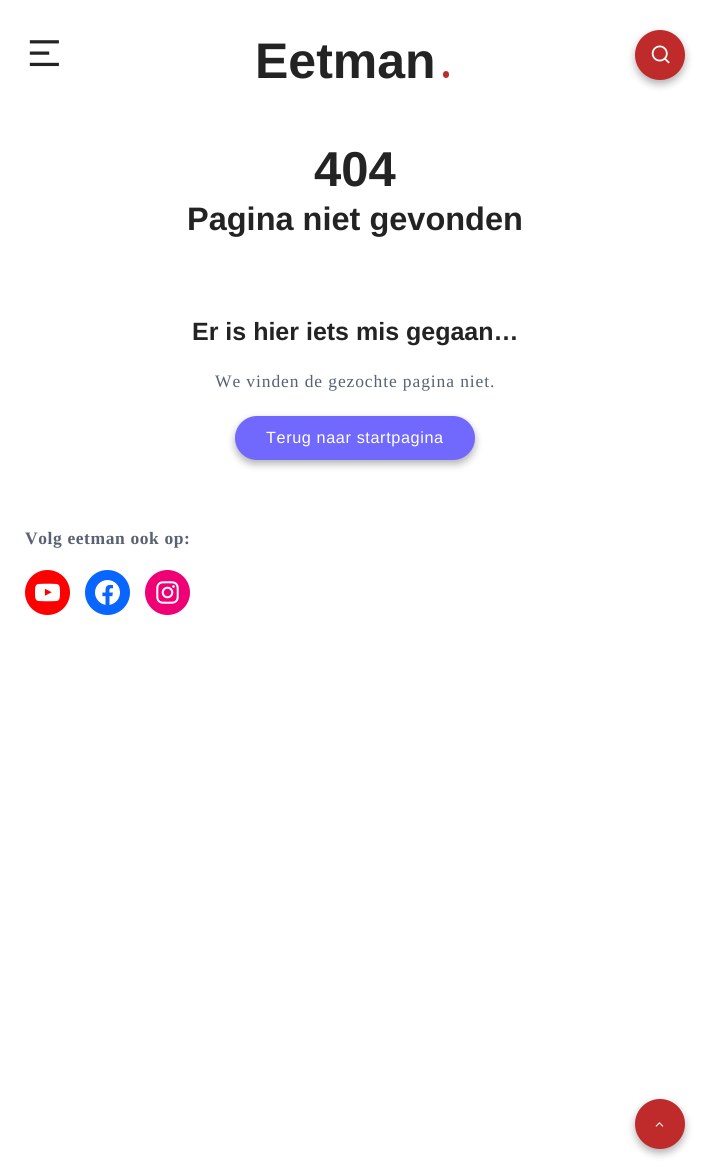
#include <cairo.h>
#include <math.h>
#include <stddef.h>

static cairo_t *ctx;

static void use_color(int r, int g, int b) {
    cairo_set_source_rgb(ctx, r / 255.0, g / 255.0, b / 255.0);
}

static void spaced_text(double x, double y, const char *s, double letter, double word) {
    cairo_move_to(ctx, x, y);
    while (*s) {
        char ch[5] = {0};
        int n = 0;
        do ch[n++] = *s++; while ((*s & 0xC0) == 0x80);
        cairo_show_text(ctx, ch);
        cairo_rel_move_to(ctx, letter + word * (*ch == ' '), 0);
    }
}

static void round_rect(double x, double y, double w, double h, double r) {
    cairo_new_sub_path(ctx);
    cairo_arc(ctx, x + w - r, y + h - r, r, 0, M_PI / 2);
    cairo_arc(ctx, x + r, y + h - r, r, M_PI / 2, M_PI);
    cairo_arc(ctx, x + r, y + r, r, M_PI, 1.5 * M_PI);
    cairo_arc(ctx, x + w - r, y + r, r, 1.5 * M_PI, 2 * M_PI);
    cairo_close_path(ctx);
}

static void shadow(double x, double y, double w, double h, double r, double blur, double alpha) {
    cairo_push_group_with_content(ctx, CAIRO_CONTENT_ALPHA);
    cairo_set_operator(ctx, CAIRO_OPERATOR_SOURCE);
    for (int i = 15; i >= -15 && fmin(w, h) + blur * i / 3 > 0; i -= 2) {
        double e = blur * i / 6;
        cairo_set_source_rgba(ctx, 0, 0, 0, alpha * erfc((i - 1) / 8.5) / 2);
        round_rect(x - e, y - e, w + 2 * e, h + 2 * e, fmax(0, fmin(r + e + blur * .6, fmin(w, h) / 2 + e)));
        cairo_fill(ctx);
    }
    cairo_pattern_t *soft = cairo_pop_group(ctx);
    cairo_mask(ctx, soft);
    cairo_pattern_destroy(soft);
}

static void picture(const char *path, double x, double y, double w, double h) {
    cairo_surface_t *image = cairo_image_surface_create_from_png(path);
    cairo_save(ctx);
    cairo_set_source_surface(ctx, image, x, y);
    cairo_rectangle(ctx, x, y, w, h);
    cairo_fill(ctx);
    cairo_restore(ctx);
    cairo_surface_destroy(image);
}

int main(void) {
    cairo_surface_t *surface = cairo_image_surface_create(CAIRO_FORMAT_RGB24, 710, 1173);
    ctx = cairo_create(surface);
    cairo_font_options_t *options = cairo_font_options_create();
    cairo_font_options_set_hint_metrics(options, CAIRO_HINT_METRICS_OFF);
    cairo_font_options_set_hint_style(options, CAIRO_HINT_STYLE_NONE);
    cairo_set_font_options(ctx, options);
    cairo_set_miter_limit(ctx, 4);
    use_color(255, 255, 255);
    cairo_paint(ctx);
    picture("img1.png", 29, 40, 30, 27);
    cairo_select_font_face(ctx, "Liberation Sans", CAIRO_FONT_SLANT_NORMAL, CAIRO_FONT_WEIGHT_BOLD);
    cairo_set_font_size(ctx, 50);
    use_color(36, 35, 35);
    cairo_move_to(ctx, 255, 78);
    cairo_show_text(ctx, "Eetman");
    use_color(191, 43, 43);
    round_rect(443, 71, 6, 7, 3);
    cairo_fill(ctx);
    use_color(0, 0, 0);
    shadow(635, 34, 50, 50, 25, 4, 0.3);
    use_color(191, 43, 43);
    cairo_arc(ctx, 660, 55, 25, 0, 2 * M_PI);
    cairo_fill(ctx);
    picture("img2.png", 651, 45, 19, 19);
    cairo_set_font_size(ctx, 49);
    use_color(36, 35, 35);
    cairo_move_to(ctx, 314, 186);
    cairo_show_text(ctx, "404");
    cairo_set_font_size(ctx, 32.5);
    cairo_move_to(ctx, 187, 230);
    cairo_show_text(ctx, "Pagina niet gevonden");
    cairo_set_font_size(ctx, 25);
    cairo_move_to(ctx, 192, 340);
    cairo_show_text(ctx, "Er is hier iets mis gegaan…");
    cairo_select_font_face(ctx, "Liberation Serif", CAIRO_FONT_SLANT_NORMAL, CAIRO_FONT_WEIGHT_NORMAL);
    cairo_set_font_size(ctx, 17.5);
    use_color(89, 97, 114);
    spaced_text(215, 387, "We vinden de gezochte pagina niet.", 0.9, 0);
    use_color(0, 0, 0);
    shadow(235, 420, 240, 44, 22, 4, 0.3);
    use_color(113, 105, 254);
    round_rect(235, 416, 240, 44, 22);
    cairo_fill(ctx);
    cairo_select_font_face(ctx, "Liberation Sans", CAIRO_FONT_SLANT_NORMAL, CAIRO_FONT_WEIGHT_NORMAL);
    cairo_set_font_size(ctx, 16.25);
    use_color(255, 255, 255);
    spaced_text(266, 443, "Terug naar startpagina", 0.6, 0);
    cairo_select_font_face(ctx, "Liberation Serif", CAIRO_FONT_SLANT_NORMAL, CAIRO_FONT_WEIGHT_BOLD);
    cairo_set_font_size(ctx, 17.5);
    use_color(89, 97, 114);
    spaced_text(25, 544, "Volg eetman ook op:", 0.6, 0);
    use_color(255, 0, 0);
    cairo_new_path(ctx);
    cairo_arc(ctx, 47.5, 592.5, 22.5, 0, 2 * M_PI);
    cairo_fill(ctx);
    picture("img3.png", 35, 583, 25, 19);
    use_color(8, 102, 255);
    cairo_arc(ctx, 107.5, 592.5, 22.5, 0, 2 * M_PI);
    cairo_fill(ctx);
    picture("img4.png", 95, 580, 25, 25);
    use_color(240, 0, 117);
    cairo_arc(ctx, 167.5, 592.5, 22.5, 0, 2 * M_PI);
    cairo_fill(ctx);
    picture("img5.png", 156, 581, 23, 23);
    use_color(0, 0, 0);
    shadow(635, 1103, 50, 50, 25, 4, 0.3);
    use_color(191, 43, 43);
    cairo_arc(ctx, 660, 1124, 25, 0, 2 * M_PI);
    cairo_fill(ctx);
    picture("img6.png", 655, 1122, 9, 5);
    cairo_surface_write_to_png(surface, "result.png");
    cairo_font_options_destroy(options);
    cairo_destroy(ctx);
    cairo_surface_destroy(surface);
    return 0;
}
